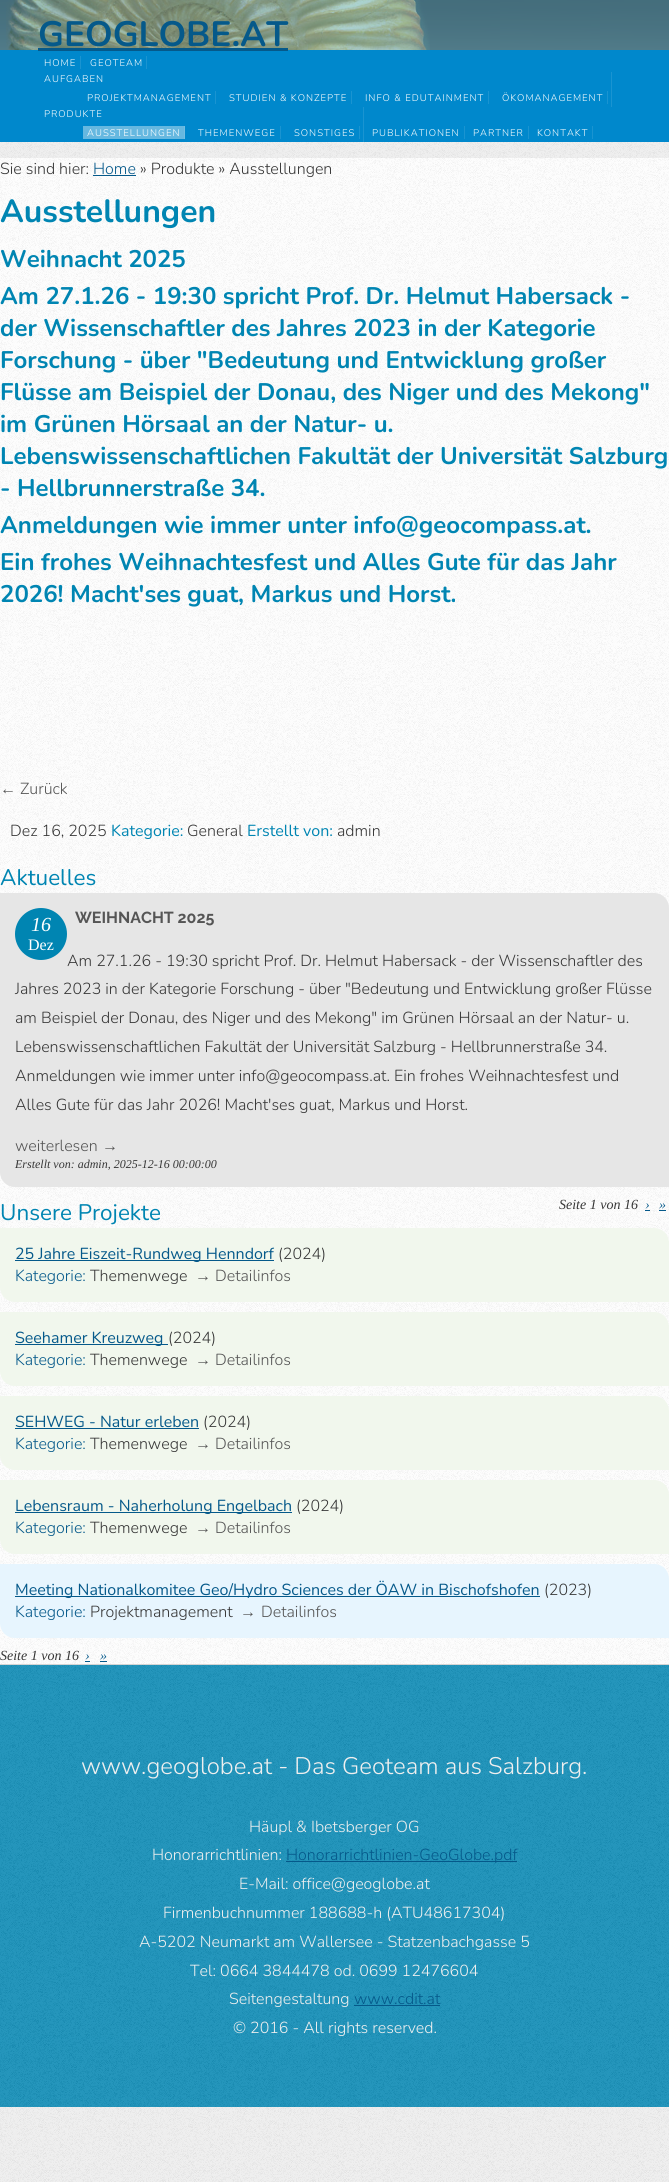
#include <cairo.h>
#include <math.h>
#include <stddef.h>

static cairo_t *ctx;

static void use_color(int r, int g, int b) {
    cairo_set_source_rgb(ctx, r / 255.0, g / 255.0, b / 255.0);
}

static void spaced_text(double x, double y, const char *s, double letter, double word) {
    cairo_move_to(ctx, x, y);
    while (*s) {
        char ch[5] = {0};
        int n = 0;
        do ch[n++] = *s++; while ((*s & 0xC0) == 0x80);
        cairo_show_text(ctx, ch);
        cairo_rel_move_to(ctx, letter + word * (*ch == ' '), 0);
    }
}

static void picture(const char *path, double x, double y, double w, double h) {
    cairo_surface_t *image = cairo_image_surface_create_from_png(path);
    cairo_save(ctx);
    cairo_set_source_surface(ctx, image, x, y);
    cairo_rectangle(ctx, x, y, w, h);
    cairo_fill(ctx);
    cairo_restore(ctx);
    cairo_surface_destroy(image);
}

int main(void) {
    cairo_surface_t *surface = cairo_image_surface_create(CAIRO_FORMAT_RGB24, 669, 2182);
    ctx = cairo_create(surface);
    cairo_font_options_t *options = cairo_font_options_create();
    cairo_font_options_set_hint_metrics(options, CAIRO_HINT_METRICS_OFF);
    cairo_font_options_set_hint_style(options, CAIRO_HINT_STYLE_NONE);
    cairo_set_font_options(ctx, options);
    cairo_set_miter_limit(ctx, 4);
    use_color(237, 237, 237);
    cairo_paint(ctx);
    picture("img1.png", 0, 142, 669, 2040);
    picture("img2.png", 0, 0, 669, 50);
    picture("img3.png", 6, 0, 424, 50);
    cairo_select_font_face(ctx, "Nunito", CAIRO_FONT_SLANT_NORMAL, CAIRO_FONT_WEIGHT_BOLD);
    cairo_set_font_size(ctx, 35.25);
    use_color(5, 89, 138);
    cairo_move_to(ctx, 38, 46);
    cairo_show_text(ctx, "GEOGLOBE.AT");
    use_color(0, 136, 204);
    cairo_rectangle(ctx, 0, 50, 669, 92);
    cairo_fill(ctx);
    use_color(5, 89, 138);
    cairo_rectangle(ctx, 38, 48, 250, 3);
    cairo_fill(ctx);
    use_color(26, 148, 209);
    cairo_rectangle(ctx, 80, 56, 1, 13);
    cairo_fill(ctx);
    cairo_select_font_face(ctx, "Nunito Light", CAIRO_FONT_SLANT_NORMAL, CAIRO_FONT_WEIGHT_NORMAL);
    cairo_set_font_size(ctx, 9.6);
    use_color(255, 255, 255);
    spaced_text(44, 66, "HOME", 1, 0);
    use_color(26, 148, 209);
    cairo_rectangle(ctx, 146, 56, 1, 13);
    cairo_fill(ctx);
    use_color(255, 255, 255);
    spaced_text(90, 66, "GEOTEAM", 1, 0);
    use_color(26, 148, 209);
    cairo_rectangle(ctx, 611, 72, 1, 35);
    cairo_fill(ctx);
    use_color(255, 255, 255);
    spaced_text(44, 82, "AUFGABEN", 1, 0);
    use_color(26, 148, 209);
    cairo_rectangle(ctx, 215, 91, 1, 13);
    cairo_fill(ctx);
    use_color(255, 255, 255);
    spaced_text(87, 101, "PROJEKTMANAGEMENT", 1, 0);
    use_color(26, 148, 209);
    cairo_rectangle(ctx, 351, 91, 1, 13);
    cairo_fill(ctx);
    use_color(255, 255, 255);
    spaced_text(229, 101, "STUDIEN & KONZEPTE", 1, 0);
    use_color(26, 148, 209);
    cairo_rectangle(ctx, 488, 91, 1, 13);
    cairo_fill(ctx);
    use_color(255, 255, 255);
    spaced_text(365, 101, "INFO & EDUTAINMENT", 1, 0);
    use_color(26, 148, 209);
    cairo_rectangle(ctx, 607, 91, 1, 13);
    cairo_fill(ctx);
    use_color(255, 255, 255);
    spaced_text(502, 101, "ÖKOMANAGEMENT", 1, 0);
    use_color(26, 148, 209);
    cairo_rectangle(ctx, 363, 107, 1, 35);
    cairo_fill(ctx);
    use_color(255, 255, 255);
    spaced_text(44, 117, "PRODUKTE", 1, 0);
    use_color(102, 184, 224);
    cairo_rectangle(ctx, 83, 126, 101, 13);
    cairo_fill(ctx);
    use_color(117, 191, 227);
    cairo_rectangle(ctx, 184, 126, 1, 13);
    cairo_fill(ctx);
    use_color(255, 255, 255);
    spaced_text(87, 136, "AUSSTELLUNGEN", 1, 0);
    use_color(26, 148, 209);
    cairo_rectangle(ctx, 280, 126, 1, 13);
    cairo_fill(ctx);
    use_color(255, 255, 255);
    spaced_text(198, 136, "THEMENWEGE", 1, 0);
    use_color(26, 148, 209);
    cairo_rectangle(ctx, 359, 126, 1, 13);
    cairo_fill(ctx);
    use_color(255, 255, 255);
    spaced_text(294, 136, "SONSTIGES", 1, 0);
    use_color(26, 148, 209);
    cairo_rectangle(ctx, 464, 126, 1, 13);
    cairo_fill(ctx);
    use_color(255, 255, 255);
    spaced_text(372, 136, "PUBLIKATIONEN", 1, 0);
    use_color(26, 148, 209);
    cairo_rectangle(ctx, 528, 126, 1, 13);
    cairo_fill(ctx);
    use_color(255, 255, 255);
    spaced_text(473, 136, "PARTNER", 1, 0);
    use_color(26, 148, 209);
    cairo_rectangle(ctx, 592, 126, 1, 13);
    cairo_fill(ctx);
    use_color(255, 255, 255);
    spaced_text(537, 136, "KONTAKT", 1, 0);
    use_color(254, 254, 254);
    cairo_rectangle(ctx, 0, 158, 669, 1506);
    cairo_fill(ctx);
    picture("img4.png", 0, 158, 669, 1506);
    cairo_set_font_size(ctx, 16);
    use_color(54, 54, 54);
    cairo_move_to(ctx, 0, 174);
    cairo_show_text(ctx, "Sie sind hier:");
    use_color(5, 89, 138);
    cairo_move_to(ctx, 93, 174);
    cairo_show_text(ctx, "Home");
    cairo_rectangle(ctx, 93, 175, 43, 1);
    cairo_fill(ctx);
    use_color(54, 54, 54);
    cairo_move_to(ctx, 140, 174);
    cairo_show_text(ctx, "» Produkte » Ausstellungen");
    cairo_select_font_face(ctx, "Nunito", CAIRO_FONT_SLANT_NORMAL, CAIRO_FONT_WEIGHT_BOLD);
    cairo_set_font_size(ctx, 32);
    use_color(0, 133, 178);
    cairo_move_to(ctx, 0, 222);
    cairo_show_text(ctx, "Ausstellungen");
    cairo_set_font_size(ctx, 24);
    cairo_move_to(ctx, 0, 267);
    cairo_show_text(ctx, "Weihnacht 2025");
    cairo_move_to(ctx, 0, 304);
    cairo_show_text(ctx, "Am 27.1.26 - 19:30 spricht Prof. Dr. Helmut Habersack -");
    cairo_move_to(ctx, 0, 336);
    cairo_show_text(ctx, "der Wissenschaftler des Jahres 2023 in der Kategorie");
    cairo_move_to(ctx, 0, 368);
    cairo_show_text(ctx, "Forschung - über \"Bedeutung und Entwicklung großer");
    cairo_move_to(ctx, 0, 400);
    cairo_show_text(ctx, "Flüsse am Beispiel der Donau, des Niger und des Mekong\"");
    cairo_move_to(ctx, 0, 432);
    cairo_show_text(ctx, "im Grünen Hörsaal an der Natur- u.");
    cairo_move_to(ctx, 0, 464);
    cairo_show_text(ctx, "Lebenswissenschaftlichen Fakultät der Universität Salzburg");
    cairo_move_to(ctx, 0, 496);
    cairo_show_text(ctx, "- Hellbrunnerstraße 34.");
    cairo_move_to(ctx, 0, 533);
    cairo_show_text(ctx, "Anmeldungen wie immer unter info@geocompass.at.");
    cairo_move_to(ctx, 0, 570);
    cairo_show_text(ctx, "Ein frohes Weihnachtesfest und Alles Gute für das Jahr");
    cairo_move_to(ctx, 0, 602);
    cairo_show_text(ctx, "2026! Macht'ses guat, Markus und Horst.");
    cairo_select_font_face(ctx, "Liberation Sans", CAIRO_FONT_SLANT_NORMAL, CAIRO_FONT_WEIGHT_NORMAL);
    cairo_set_font_size(ctx, 16);
    use_color(85, 85, 85);
    cairo_move_to(ctx, 0, 794);
    cairo_show_text(ctx, "←");
    cairo_select_font_face(ctx, "Nunito Light", CAIRO_FONT_SLANT_NORMAL, CAIRO_FONT_WEIGHT_NORMAL);
    cairo_move_to(ctx, 20, 794);
    cairo_show_text(ctx, "Zurück");
    use_color(54, 54, 54);
    cairo_move_to(ctx, 10, 836);
    cairo_show_text(ctx, "Dez 16, 2025");
    cairo_select_font_face(ctx, "Nunito", CAIRO_FONT_SLANT_NORMAL, CAIRO_FONT_WEIGHT_NORMAL);
    use_color(0, 133, 178);
    cairo_move_to(ctx, 111, 836);
    cairo_show_text(ctx, "Kategorie:");
    cairo_select_font_face(ctx, "Nunito Light", CAIRO_FONT_SLANT_NORMAL, CAIRO_FONT_WEIGHT_NORMAL);
    use_color(54, 54, 54);
    cairo_move_to(ctx, 187, 836);
    cairo_show_text(ctx, "General");
    cairo_select_font_face(ctx, "Nunito", CAIRO_FONT_SLANT_NORMAL, CAIRO_FONT_WEIGHT_NORMAL);
    use_color(0, 133, 178);
    cairo_move_to(ctx, 247, 836);
    cairo_show_text(ctx, "Erstellt von:");
    cairo_select_font_face(ctx, "Nunito Light", CAIRO_FONT_SLANT_NORMAL, CAIRO_FONT_WEIGHT_NORMAL);
    use_color(54, 54, 54);
    cairo_move_to(ctx, 337, 836);
    cairo_show_text(ctx, "admin");
    cairo_select_font_face(ctx, "Nunito", CAIRO_FONT_SLANT_NORMAL, CAIRO_FONT_WEIGHT_NORMAL);
    cairo_set_font_size(ctx, 22.5);
    use_color(0, 133, 178);
    cairo_move_to(ctx, 0, 885);
    cairo_show_text(ctx, "Aktuelles");
    use_color(230, 230, 230);
    cairo_new_path(ctx);
    cairo_move_to(ctx, 0, 893);
    cairo_line_to(ctx, 654, 893);
    cairo_curve_to(ctx, 662.5, 893, 669, 899.5, 669, 908);
    cairo_line_to(ctx, 669, 1187);
    cairo_line_to(ctx, 15, 1187);
    cairo_curve_to(ctx, 6.5, 1187, 0, 1180.5, 0, 1172);
    cairo_close_path(ctx);
    cairo_fill(ctx);
    use_color(0, 133, 178);
    cairo_arc(ctx, 41, 934, 26, 0, 2 * M_PI);
    cairo_fill(ctx);
    cairo_select_font_face(ctx, "Liberation Serif", CAIRO_FONT_SLANT_ITALIC, CAIRO_FONT_WEIGHT_NORMAL);
    cairo_set_font_size(ctx, 20);
    use_color(255, 255, 255);
    cairo_move_to(ctx, 31, 931);
    cairo_show_text(ctx, "16");
    cairo_select_font_face(ctx, "Liberation Serif", CAIRO_FONT_SLANT_NORMAL, CAIRO_FONT_WEIGHT_NORMAL);
    cairo_set_font_size(ctx, 16);
    cairo_move_to(ctx, 28, 950);
    cairo_show_text(ctx, "Dez");
    cairo_select_font_face(ctx, "Raleway", CAIRO_FONT_SLANT_NORMAL, CAIRO_FONT_WEIGHT_BOLD);
    use_color(85, 85, 85);
    cairo_move_to(ctx, 75, 923);
    cairo_show_text(ctx, "WEIHNACHT 2025");
    cairo_select_font_face(ctx, "Nunito Light", CAIRO_FONT_SLANT_NORMAL, CAIRO_FONT_WEIGHT_NORMAL);
    use_color(54, 54, 54);
    cairo_move_to(ctx, 67, 966);
    cairo_show_text(ctx, "Am 27.1.26 - 19:30 spricht Prof. Dr. Helmut Habersack - der Wissenschaftler des");
    cairo_move_to(ctx, 15, 994);
    cairo_show_text(ctx, "Jahres 2023 in der Kategorie Forschung - über \"Bedeutung und Entwicklung großer Flüsse");
    cairo_move_to(ctx, 15, 1023);
    cairo_show_text(ctx, "am Beispiel der Donau, des Niger und des Mekong\" im Grünen Hörsaal an der Natur- u.");
    cairo_move_to(ctx, 15, 1052);
    cairo_show_text(ctx, "Lebenswissenschaftlichen Fakultät der Universität Salzburg - Hellbrunnerstraße 34.");
    cairo_move_to(ctx, 15, 1081);
    cairo_show_text(ctx, "Anmeldungen wie immer unter info@geocompass.at. Ein frohes Weihnachtesfest und");
    cairo_move_to(ctx, 15, 1110);
    cairo_show_text(ctx, "Alles Gute für das Jahr 2026! Macht'ses guat, Markus und Horst.");
    use_color(85, 85, 85);
    cairo_move_to(ctx, 15, 1151);
    cairo_show_text(ctx, "weiterlesen");
    cairo_select_font_face(ctx, "Liberation Sans", CAIRO_FONT_SLANT_NORMAL, CAIRO_FONT_WEIGHT_NORMAL);
    cairo_move_to(ctx, 102, 1151);
    cairo_show_text(ctx, "→");
    cairo_select_font_face(ctx, "Liberation Serif", CAIRO_FONT_SLANT_ITALIC, CAIRO_FONT_WEIGHT_NORMAL);
    cairo_set_font_size(ctx, 12);
    use_color(54, 54, 54);
    cairo_move_to(ctx, 15, 1168);
    cairo_show_text(ctx, "Erstellt von: admin, 2025-12-16 00:00:00");
    cairo_select_font_face(ctx, "Nunito", CAIRO_FONT_SLANT_NORMAL, CAIRO_FONT_WEIGHT_NORMAL);
    cairo_set_font_size(ctx, 22.5);
    use_color(0, 133, 178);
    cairo_move_to(ctx, 0, 1220);
    cairo_show_text(ctx, "Unsere Projekte");
    cairo_select_font_face(ctx, "Liberation Serif", CAIRO_FONT_SLANT_ITALIC, CAIRO_FONT_WEIGHT_NORMAL);
    cairo_set_font_size(ctx, 14);
    use_color(54, 54, 54);
    cairo_move_to(ctx, 559, 1209);
    cairo_show_text(ctx, "Seite 1 von 16");
    use_color(5, 89, 138);
    cairo_move_to(ctx, 645, 1209);
    cairo_show_text(ctx, "›");
    cairo_rectangle(ctx, 645, 1210, 5, 1);
    cairo_fill(ctx);
    cairo_move_to(ctx, 659, 1209);
    cairo_show_text(ctx, "»");
    cairo_rectangle(ctx, 659, 1210, 7, 1);
    cairo_fill(ctx);
    use_color(241, 247, 237);
    cairo_new_path(ctx);
    cairo_move_to(ctx, 0, 1228);
    cairo_line_to(ctx, 654, 1228);
    cairo_curve_to(ctx, 662.5, 1228, 669, 1234.5, 669, 1243);
    cairo_line_to(ctx, 669, 1302);
    cairo_line_to(ctx, 15, 1302);
    cairo_curve_to(ctx, 6.5, 1302, 0, 1295.5, 0, 1287);
    cairo_close_path(ctx);
    cairo_fill(ctx);
    use_color(5, 89, 138);
    cairo_rectangle(ctx, 15, 1260, 259, 1);
    cairo_fill(ctx);
    cairo_select_font_face(ctx, "Nunito", CAIRO_FONT_SLANT_NORMAL, CAIRO_FONT_WEIGHT_NORMAL);
    cairo_set_font_size(ctx, 16);
    cairo_move_to(ctx, 15, 1259);
    cairo_show_text(ctx, "25 Jahre Eiszeit-Rundweg Henndorf");
    cairo_select_font_face(ctx, "Nunito Light", CAIRO_FONT_SLANT_NORMAL, CAIRO_FONT_WEIGHT_NORMAL);
    use_color(54, 54, 54);
    cairo_move_to(ctx, 278, 1259);
    cairo_show_text(ctx, "(2024)");
    use_color(5, 89, 138);
    cairo_move_to(ctx, 15, 1281);
    cairo_show_text(ctx, "Kategorie:");
    use_color(54, 54, 54);
    cairo_move_to(ctx, 90, 1281);
    cairo_show_text(ctx, "Themenwege");
    cairo_select_font_face(ctx, "Liberation Sans", CAIRO_FONT_SLANT_NORMAL, CAIRO_FONT_WEIGHT_NORMAL);
    use_color(85, 85, 85);
    cairo_move_to(ctx, 195, 1281);
    cairo_show_text(ctx, "→");
    cairo_select_font_face(ctx, "Nunito Light", CAIRO_FONT_SLANT_NORMAL, CAIRO_FONT_WEIGHT_NORMAL);
    cairo_move_to(ctx, 215, 1281);
    cairo_show_text(ctx, "Detailinfos");
    use_color(241, 247, 237);
    cairo_new_path(ctx);
    cairo_move_to(ctx, 0, 1312);
    cairo_line_to(ctx, 654, 1312);
    cairo_curve_to(ctx, 662.5, 1312, 669, 1318.5, 669, 1327);
    cairo_line_to(ctx, 669, 1386);
    cairo_line_to(ctx, 15, 1386);
    cairo_curve_to(ctx, 6.5, 1386, 0, 1379.5, 0, 1371);
    cairo_close_path(ctx);
    cairo_fill(ctx);
    use_color(5, 89, 138);
    cairo_rectangle(ctx, 15, 1344, 153, 1);
    cairo_fill(ctx);
    cairo_select_font_face(ctx, "Nunito", CAIRO_FONT_SLANT_NORMAL, CAIRO_FONT_WEIGHT_NORMAL);
    cairo_move_to(ctx, 15, 1343);
    cairo_show_text(ctx, "Seehamer Kreuzweg");
    cairo_select_font_face(ctx, "Nunito Light", CAIRO_FONT_SLANT_NORMAL, CAIRO_FONT_WEIGHT_NORMAL);
    use_color(54, 54, 54);
    cairo_move_to(ctx, 168, 1343);
    cairo_show_text(ctx, "(2024)");
    use_color(5, 89, 138);
    cairo_move_to(ctx, 15, 1365);
    cairo_show_text(ctx, "Kategorie:");
    use_color(54, 54, 54);
    cairo_move_to(ctx, 90, 1365);
    cairo_show_text(ctx, "Themenwege");
    cairo_select_font_face(ctx, "Liberation Sans", CAIRO_FONT_SLANT_NORMAL, CAIRO_FONT_WEIGHT_NORMAL);
    use_color(85, 85, 85);
    cairo_move_to(ctx, 195, 1365);
    cairo_show_text(ctx, "→");
    cairo_select_font_face(ctx, "Nunito Light", CAIRO_FONT_SLANT_NORMAL, CAIRO_FONT_WEIGHT_NORMAL);
    cairo_move_to(ctx, 215, 1365);
    cairo_show_text(ctx, "Detailinfos");
    use_color(241, 247, 237);
    cairo_new_path(ctx);
    cairo_move_to(ctx, 0, 1396);
    cairo_line_to(ctx, 654, 1396);
    cairo_curve_to(ctx, 662.5, 1396, 669, 1402.5, 669, 1411);
    cairo_line_to(ctx, 669, 1470);
    cairo_line_to(ctx, 15, 1470);
    cairo_curve_to(ctx, 6.5, 1470, 0, 1463.5, 0, 1455);
    cairo_close_path(ctx);
    cairo_fill(ctx);
    cairo_select_font_face(ctx, "Nunito", CAIRO_FONT_SLANT_NORMAL, CAIRO_FONT_WEIGHT_NORMAL);
    use_color(5, 89, 138);
    cairo_move_to(ctx, 15, 1427);
    cairo_show_text(ctx, "SEHWEG - Natur erleben");
    cairo_rectangle(ctx, 15, 1428, 184, 1);
    cairo_fill(ctx);
    cairo_select_font_face(ctx, "Nunito Light", CAIRO_FONT_SLANT_NORMAL, CAIRO_FONT_WEIGHT_NORMAL);
    use_color(54, 54, 54);
    cairo_move_to(ctx, 203, 1427);
    cairo_show_text(ctx, "(2024)");
    use_color(5, 89, 138);
    cairo_move_to(ctx, 15, 1449);
    cairo_show_text(ctx, "Kategorie:");
    use_color(54, 54, 54);
    cairo_move_to(ctx, 90, 1449);
    cairo_show_text(ctx, "Themenwege");
    cairo_select_font_face(ctx, "Liberation Sans", CAIRO_FONT_SLANT_NORMAL, CAIRO_FONT_WEIGHT_NORMAL);
    use_color(85, 85, 85);
    cairo_move_to(ctx, 195, 1449);
    cairo_show_text(ctx, "→");
    cairo_select_font_face(ctx, "Nunito Light", CAIRO_FONT_SLANT_NORMAL, CAIRO_FONT_WEIGHT_NORMAL);
    cairo_move_to(ctx, 215, 1449);
    cairo_show_text(ctx, "Detailinfos");
    use_color(241, 247, 237);
    cairo_new_path(ctx);
    cairo_move_to(ctx, 0, 1480);
    cairo_line_to(ctx, 654, 1480);
    cairo_curve_to(ctx, 662.5, 1480, 669, 1486.5, 669, 1495);
    cairo_line_to(ctx, 669, 1554);
    cairo_line_to(ctx, 15, 1554);
    cairo_curve_to(ctx, 6.5, 1554, 0, 1547.5, 0, 1539);
    cairo_close_path(ctx);
    cairo_fill(ctx);
    use_color(5, 89, 138);
    cairo_rectangle(ctx, 15, 1512, 277, 1);
    cairo_fill(ctx);
    cairo_select_font_face(ctx, "Nunito", CAIRO_FONT_SLANT_NORMAL, CAIRO_FONT_WEIGHT_NORMAL);
    cairo_move_to(ctx, 15, 1511);
    cairo_show_text(ctx, "Lebensraum - Naherholung Engelbach");
    cairo_select_font_face(ctx, "Nunito Light", CAIRO_FONT_SLANT_NORMAL, CAIRO_FONT_WEIGHT_NORMAL);
    use_color(54, 54, 54);
    cairo_move_to(ctx, 296, 1511);
    cairo_show_text(ctx, "(2024)");
    use_color(5, 89, 138);
    cairo_move_to(ctx, 15, 1533);
    cairo_show_text(ctx, "Kategorie:");
    use_color(54, 54, 54);
    cairo_move_to(ctx, 90, 1533);
    cairo_show_text(ctx, "Themenwege");
    cairo_select_font_face(ctx, "Liberation Sans", CAIRO_FONT_SLANT_NORMAL, CAIRO_FONT_WEIGHT_NORMAL);
    use_color(85, 85, 85);
    cairo_move_to(ctx, 195, 1533);
    cairo_show_text(ctx, "→");
    cairo_select_font_face(ctx, "Nunito Light", CAIRO_FONT_SLANT_NORMAL, CAIRO_FONT_WEIGHT_NORMAL);
    cairo_move_to(ctx, 215, 1533);
    cairo_show_text(ctx, "Detailinfos");
    use_color(231, 245, 254);
    cairo_new_path(ctx);
    cairo_move_to(ctx, 0, 1564);
    cairo_line_to(ctx, 654, 1564);
    cairo_curve_to(ctx, 662.5, 1564, 669, 1570.5, 669, 1579);
    cairo_line_to(ctx, 669, 1638);
    cairo_line_to(ctx, 15, 1638);
    cairo_curve_to(ctx, 6.5, 1638, 0, 1631.5, 0, 1623);
    cairo_close_path(ctx);
    cairo_fill(ctx);
    use_color(5, 89, 138);
    cairo_rectangle(ctx, 15, 1596, 525, 1);
    cairo_fill(ctx);
    cairo_select_font_face(ctx, "Nunito", CAIRO_FONT_SLANT_NORMAL, CAIRO_FONT_WEIGHT_NORMAL);
    cairo_move_to(ctx, 15, 1595);
    cairo_show_text(ctx, "Meeting Nationalkomitee Geo/Hydro Sciences der ÖAW in Bischofshofen");
    cairo_select_font_face(ctx, "Nunito Light", CAIRO_FONT_SLANT_NORMAL, CAIRO_FONT_WEIGHT_NORMAL);
    use_color(54, 54, 54);
    cairo_move_to(ctx, 544, 1595);
    cairo_show_text(ctx, "(2023)");
    use_color(5, 89, 138);
    cairo_move_to(ctx, 15, 1617);
    cairo_show_text(ctx, "Kategorie:");
    use_color(54, 54, 54);
    cairo_move_to(ctx, 90, 1617);
    cairo_show_text(ctx, "Projektmanagement");
    cairo_select_font_face(ctx, "Liberation Sans", CAIRO_FONT_SLANT_NORMAL, CAIRO_FONT_WEIGHT_NORMAL);
    use_color(85, 85, 85);
    cairo_move_to(ctx, 240, 1617);
    cairo_show_text(ctx, "→");
    cairo_select_font_face(ctx, "Nunito Light", CAIRO_FONT_SLANT_NORMAL, CAIRO_FONT_WEIGHT_NORMAL);
    cairo_move_to(ctx, 261, 1617);
    cairo_show_text(ctx, "Detailinfos");
    cairo_select_font_face(ctx, "Liberation Serif", CAIRO_FONT_SLANT_ITALIC, CAIRO_FONT_WEIGHT_NORMAL);
    cairo_set_font_size(ctx, 14);
    use_color(54, 54, 54);
    cairo_move_to(ctx, 0, 1660);
    cairo_show_text(ctx, "Seite 1 von 16");
    use_color(5, 89, 138);
    cairo_move_to(ctx, 85, 1660);
    cairo_show_text(ctx, "›");
    cairo_rectangle(ctx, 85, 1661, 5, 1);
    cairo_fill(ctx);
    cairo_move_to(ctx, 100, 1660);
    cairo_show_text(ctx, "»");
    cairo_rectangle(ctx, 100, 1661, 7, 1);
    cairo_fill(ctx);
    use_color(0, 133, 178);
    cairo_rectangle(ctx, 0, 1665, 669, 442);
    cairo_fill(ctx);
    picture("img5.png", 0, 1665, 669, 442);
    use_color(212, 212, 212);
    cairo_rectangle(ctx, 0, 1664, 669, 1);
    cairo_fill(ctx);
    cairo_select_font_face(ctx, "Nunito Light", CAIRO_FONT_SLANT_NORMAL, CAIRO_FONT_WEIGHT_NORMAL);
    cairo_set_font_size(ctx, 24);
    use_color(239, 239, 239);
    cairo_move_to(ctx, 81, 1774);
    cairo_show_text(ctx, "www.geoglobe.at - Das Geoteam aus Salzburg.");
    cairo_set_font_size(ctx, 16);
    cairo_move_to(ctx, 249, 1832);
    cairo_show_text(ctx, "Häupl & Ibetsberger OG");
    cairo_move_to(ctx, 152, 1860);
    cairo_show_text(ctx, "Honorarrichtlinien:");
    use_color(5, 89, 138);
    cairo_rectangle(ctx, 286, 1861, 231, 1);
    cairo_fill(ctx);
    cairo_move_to(ctx, 286, 1860);
    cairo_show_text(ctx, "Honorarrichtlinien-GeoGlobe.pdf");
    use_color(239, 239, 239);
    cairo_move_to(ctx, 239, 1889);
    cairo_show_text(ctx, "E-Mail: office@geoglobe.at");
    cairo_move_to(ctx, 163, 1918);
    cairo_show_text(ctx, "Firmenbuchnummer 188688-h (ATU48617304)");
    cairo_move_to(ctx, 139, 1947);
    cairo_show_text(ctx, "A-5202 Neumarkt am Wallersee - Statzenbachgasse 5");
    cairo_move_to(ctx, 190, 1976);
    cairo_show_text(ctx, "Tel: 0664 3844478 od. 0699 12476604");
    cairo_move_to(ctx, 229, 2004);
    cairo_show_text(ctx, "Seitengestaltung");
    use_color(5, 89, 138);
    cairo_move_to(ctx, 354, 2004);
    cairo_show_text(ctx, "www.cdit.at");
    cairo_rectangle(ctx, 354, 2005, 86, 1);
    cairo_fill(ctx);
    use_color(239, 239, 239);
    cairo_move_to(ctx, 233, 2033);
    cairo_show_text(ctx, "© 2016 - All rights reserved.");
    cairo_surface_write_to_png(surface, "result.png");
    cairo_font_options_destroy(options);
    cairo_destroy(ctx);
    cairo_surface_destroy(surface);
    return 0;
}
